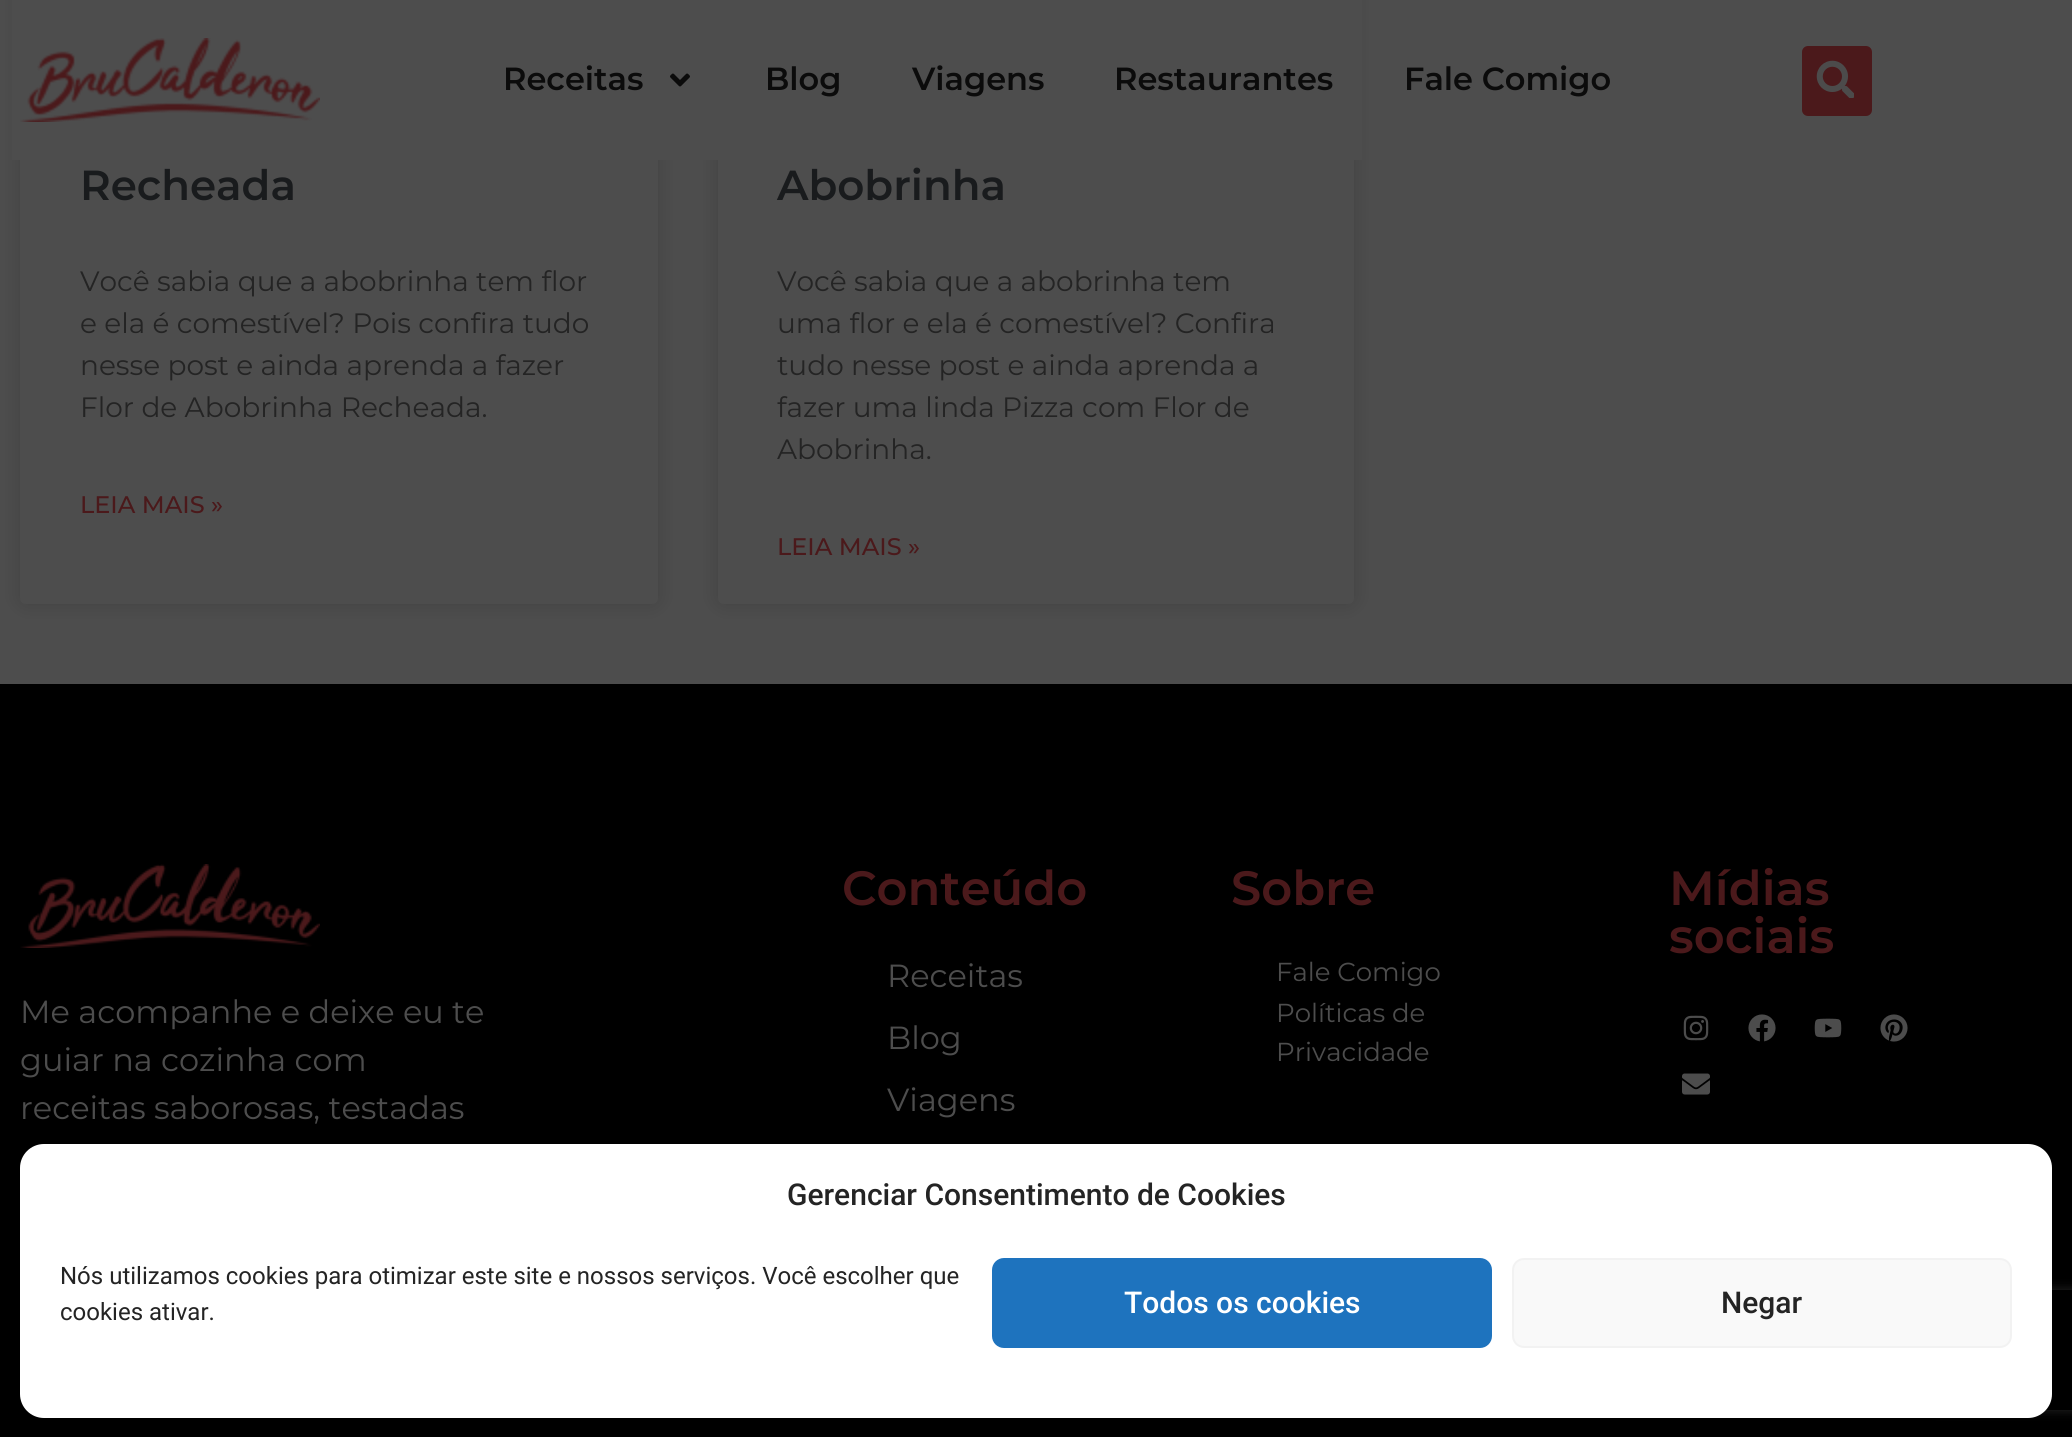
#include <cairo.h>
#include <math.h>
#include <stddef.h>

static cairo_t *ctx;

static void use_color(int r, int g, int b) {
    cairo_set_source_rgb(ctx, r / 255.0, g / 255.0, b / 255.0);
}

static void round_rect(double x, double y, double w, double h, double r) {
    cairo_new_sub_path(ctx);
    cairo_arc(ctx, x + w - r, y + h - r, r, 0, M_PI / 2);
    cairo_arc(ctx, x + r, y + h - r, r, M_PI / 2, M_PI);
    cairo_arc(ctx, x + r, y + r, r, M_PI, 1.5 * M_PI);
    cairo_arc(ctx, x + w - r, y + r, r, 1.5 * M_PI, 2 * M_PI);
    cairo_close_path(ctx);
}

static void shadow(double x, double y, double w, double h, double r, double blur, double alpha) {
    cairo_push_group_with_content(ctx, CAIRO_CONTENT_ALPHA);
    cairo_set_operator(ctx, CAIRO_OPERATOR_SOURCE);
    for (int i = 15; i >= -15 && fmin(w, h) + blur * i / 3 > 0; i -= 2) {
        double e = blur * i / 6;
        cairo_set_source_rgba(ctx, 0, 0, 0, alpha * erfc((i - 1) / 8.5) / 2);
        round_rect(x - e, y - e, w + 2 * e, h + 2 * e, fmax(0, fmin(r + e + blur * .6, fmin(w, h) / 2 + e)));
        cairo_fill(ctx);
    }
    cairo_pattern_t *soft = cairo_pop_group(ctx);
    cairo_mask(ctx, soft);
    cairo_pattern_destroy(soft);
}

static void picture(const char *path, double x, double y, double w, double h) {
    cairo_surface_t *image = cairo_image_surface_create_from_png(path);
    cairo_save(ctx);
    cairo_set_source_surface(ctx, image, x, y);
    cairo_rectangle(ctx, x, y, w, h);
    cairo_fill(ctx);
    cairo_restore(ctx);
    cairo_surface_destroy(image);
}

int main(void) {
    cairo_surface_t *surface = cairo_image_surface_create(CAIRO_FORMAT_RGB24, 2072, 1437);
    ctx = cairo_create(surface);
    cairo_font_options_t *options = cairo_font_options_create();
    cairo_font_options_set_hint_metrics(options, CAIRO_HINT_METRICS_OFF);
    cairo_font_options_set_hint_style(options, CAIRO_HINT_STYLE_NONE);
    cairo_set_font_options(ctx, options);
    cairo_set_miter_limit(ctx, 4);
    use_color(77, 77, 77);
    cairo_paint(ctx);
    use_color(0, 0, 0);
    shadow(20, -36, 638, 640, 6, 10, 0.15);
    use_color(77, 77, 77);
    round_rect(20, -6, 638, 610, 6);
    cairo_fill(ctx);
    use_color(0, 0, 0);
    shadow(718, -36, 636, 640, 6, 10, 0.15);
    use_color(77, 77, 77);
    round_rect(718, -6, 636, 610, 6);
    cairo_fill(ctx);
    cairo_rectangle(ctx, 12, 0, 1350, 160);
    cairo_fill(ctx);
    picture("img1.png", 20, 38, 300, 84);
    cairo_select_font_face(ctx, "Montserrat SemiBold", CAIRO_FONT_SLANT_NORMAL, CAIRO_FONT_WEIGHT_NORMAL);
    cairo_set_font_size(ctx, 32);
    use_color(11, 11, 11);
    cairo_move_to(ctx, 503, 90);
    cairo_show_text(ctx, "Receitas");
    picture("img2.png", 670, 73, 20, 14);
    cairo_move_to(ctx, 765, 90);
    cairo_show_text(ctx, "Blog");
    cairo_move_to(ctx, 912, 90);
    cairo_show_text(ctx, "Viagens");
    cairo_move_to(ctx, 1114, 90);
    cairo_show_text(ctx, "Restaurantes");
    cairo_move_to(ctx, 1404, 90);
    cairo_show_text(ctx, "Fale Comigo");
    use_color(75, 25, 27);
    round_rect(1802, 46, 70, 70, 6);
    cairo_fill(ctx);
    picture("img3.png", 1816, 60, 38, 38);
    cairo_set_font_size(ctx, 42);
    use_color(25, 27, 29);
    cairo_move_to(ctx, 80, 200);
    cairo_show_text(ctx, "Recheada");
    cairo_select_font_face(ctx, "Montserrat", CAIRO_FONT_SLANT_NORMAL, CAIRO_FONT_WEIGHT_NORMAL);
    cairo_set_font_size(ctx, 28);
    use_color(36, 36, 36);
    cairo_move_to(ctx, 80, 291);
    cairo_show_text(ctx, "Você sabia que a abobrinha tem flor");
    cairo_move_to(ctx, 80, 333);
    cairo_show_text(ctx, "e ela é comestível? Pois confira tudo");
    cairo_move_to(ctx, 80, 375);
    cairo_show_text(ctx, "nesse post e ainda aprenda a fazer");
    cairo_move_to(ctx, 80, 417);
    cairo_show_text(ctx, "Flor de Abobrinha Recheada.");
    cairo_select_font_face(ctx, "Montserrat Medium", CAIRO_FONT_SLANT_NORMAL, CAIRO_FONT_WEIGHT_NORMAL);
    cairo_set_font_size(ctx, 24);
    use_color(75, 25, 27);
    cairo_move_to(ctx, 80, 513);
    cairo_show_text(ctx, "LEIA MAIS »");
    cairo_select_font_face(ctx, "Montserrat SemiBold", CAIRO_FONT_SLANT_NORMAL, CAIRO_FONT_WEIGHT_NORMAL);
    cairo_set_font_size(ctx, 42);
    use_color(25, 27, 29);
    cairo_move_to(ctx, 777, 200);
    cairo_show_text(ctx, "Abobrinha");
    cairo_select_font_face(ctx, "Montserrat", CAIRO_FONT_SLANT_NORMAL, CAIRO_FONT_WEIGHT_NORMAL);
    cairo_set_font_size(ctx, 28);
    use_color(36, 36, 36);
    cairo_move_to(ctx, 777, 291);
    cairo_show_text(ctx, "Você sabia que a abobrinha tem");
    cairo_move_to(ctx, 777, 333);
    cairo_show_text(ctx, "uma flor e ela é comestível? Confira");
    cairo_move_to(ctx, 777, 375);
    cairo_show_text(ctx, "tudo nesse post e ainda aprenda a");
    cairo_move_to(ctx, 777, 417);
    cairo_show_text(ctx, "fazer uma linda Pizza com Flor de");
    cairo_move_to(ctx, 777, 459);
    cairo_show_text(ctx, "Abobrinha.");
    cairo_select_font_face(ctx, "Montserrat Medium", CAIRO_FONT_SLANT_NORMAL, CAIRO_FONT_WEIGHT_NORMAL);
    cairo_set_font_size(ctx, 24);
    use_color(75, 25, 27);
    cairo_move_to(ctx, 777, 555);
    cairo_show_text(ctx, "LEIA MAIS »");
    use_color(0, 0, 0);
    cairo_rectangle(ctx, 0, 684, 2072, 753);
    cairo_fill(ctx);
    picture("img4.png", 20, 864, 300, 84);
    cairo_select_font_face(ctx, "Montserrat", CAIRO_FONT_SLANT_NORMAL, CAIRO_FONT_WEIGHT_NORMAL);
    cairo_set_font_size(ctx, 32);
    use_color(77, 77, 77);
    cairo_move_to(ctx, 20, 1023);
    cairo_show_text(ctx, "Me acompanhe e deixe eu te");
    cairo_move_to(ctx, 20, 1071);
    cairo_show_text(ctx, "guiar na cozinha com");
    cairo_move_to(ctx, 20, 1119);
    cairo_show_text(ctx, "receitas saborosas, testadas");
    cairo_select_font_face(ctx, "Montserrat SemiBold", CAIRO_FONT_SLANT_NORMAL, CAIRO_FONT_WEIGHT_NORMAL);
    cairo_set_font_size(ctx, 48);
    use_color(75, 25, 27);
    cairo_move_to(ctx, 842, 905);
    cairo_show_text(ctx, "Conteúdo");
    cairo_select_font_face(ctx, "Montserrat", CAIRO_FONT_SLANT_NORMAL, CAIRO_FONT_WEIGHT_NORMAL);
    cairo_set_font_size(ctx, 32);
    use_color(77, 77, 77);
    cairo_move_to(ctx, 887, 987);
    cairo_show_text(ctx, "Receitas");
    cairo_move_to(ctx, 887, 1049);
    cairo_show_text(ctx, "Blog");
    cairo_move_to(ctx, 887, 1111);
    cairo_show_text(ctx, "Viagens");
    cairo_select_font_face(ctx, "Montserrat SemiBold", CAIRO_FONT_SLANT_NORMAL, CAIRO_FONT_WEIGHT_NORMAL);
    cairo_set_font_size(ctx, 48);
    use_color(75, 25, 27);
    cairo_move_to(ctx, 1231, 905);
    cairo_show_text(ctx, "Sobre");
    cairo_select_font_face(ctx, "Montserrat", CAIRO_FONT_SLANT_NORMAL, CAIRO_FONT_WEIGHT_NORMAL);
    cairo_set_font_size(ctx, 26);
    use_color(77, 77, 77);
    cairo_move_to(ctx, 1276, 981);
    cairo_show_text(ctx, "Fale Comigo");
    cairo_move_to(ctx, 1276, 1022);
    cairo_show_text(ctx, "Políticas de");
    cairo_move_to(ctx, 1276, 1061);
    cairo_show_text(ctx, "Privacidade");
    cairo_select_font_face(ctx, "Montserrat SemiBold", CAIRO_FONT_SLANT_NORMAL, CAIRO_FONT_WEIGHT_NORMAL);
    cairo_set_font_size(ctx, 48);
    use_color(75, 25, 27);
    cairo_move_to(ctx, 1669, 905);
    cairo_show_text(ctx, "Mídias");
    cairo_move_to(ctx, 1669, 953);
    cairo_show_text(ctx, "sociais");
    picture("img5.png", 1683, 1015, 26, 26);
    picture("img6.png", 1748, 1014, 28, 28);
    picture("img7.png", 1814, 1018, 28, 20);
    picture("img8.png", 1880, 1014, 28, 28);
    picture("img9.png", 1682, 1073, 28, 22);
    cairo_save(ctx);
    cairo_set_fill_rule(ctx, CAIRO_FILL_RULE_EVEN_ODD);
    cairo_new_path(ctx);
    cairo_move_to(ctx, 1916, 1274);
    cairo_line_to(ctx, 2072, 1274);
    cairo_line_to(ctx, 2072, 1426);
    cairo_line_to(ctx, 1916, 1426);
    cairo_close_path(ctx);
    cairo_move_to(ctx, 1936, 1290);
    cairo_line_to(ctx, 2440, 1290);
    cairo_curve_to(ctx, 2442, 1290, 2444, 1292, 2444, 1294);
    cairo_line_to(ctx, 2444, 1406);
    cairo_curve_to(ctx, 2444, 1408, 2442, 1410, 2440, 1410);
    cairo_line_to(ctx, 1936, 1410);
    cairo_curve_to(ctx, 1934, 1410, 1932, 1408, 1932, 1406);
    cairo_line_to(ctx, 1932, 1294);
    cairo_curve_to(ctx, 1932, 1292, 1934, 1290, 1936, 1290);
    cairo_close_path(ctx);
    cairo_clip(ctx);
    use_color(38, 38, 38);
    shadow(1932, 1290, 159, 120, 4, 5, 1);
    cairo_restore(ctx);
    use_color(255, 255, 255);
    round_rect(20, 1144, 2032, 274, 24);
    cairo_fill(ctx);
    cairo_select_font_face(ctx, "Roboto Medium", CAIRO_FONT_SLANT_NORMAL, CAIRO_FONT_WEIGHT_NORMAL);
    cairo_set_font_size(ctx, 30);
    use_color(36, 36, 36);
    cairo_move_to(ctx, 787, 1205);
    cairo_show_text(ctx, "Gerenciar Consentimento de Cookies");
    cairo_select_font_face(ctx, "Roboto", CAIRO_FONT_SLANT_NORMAL, CAIRO_FONT_WEIGHT_NORMAL);
    cairo_set_font_size(ctx, 24);
    cairo_move_to(ctx, 60, 1284);
    cairo_show_text(ctx, "Nós utilizamos cookies para otimizar este site e nossos serviços. Você escolher que");
    cairo_move_to(ctx, 60, 1320);
    cairo_show_text(ctx, "cookies ativar.");
    use_color(30, 115, 190);
    round_rect(993, 1259, 498, 88, 11);
    cairo_fill_preserve(ctx);
    cairo_stroke(ctx);
    cairo_select_font_face(ctx, "Roboto Medium", CAIRO_FONT_SLANT_NORMAL, CAIRO_FONT_WEIGHT_NORMAL);
    cairo_set_font_size(ctx, 30);
    use_color(255, 255, 255);
    cairo_move_to(ctx, 1124, 1313);
    cairo_show_text(ctx, "Todos os cookies");
    use_color(249, 249, 249);
    round_rect(1513, 1259, 498, 88, 11);
    cairo_fill_preserve(ctx);
    use_color(242, 242, 242);
    cairo_stroke(ctx);
    use_color(36, 36, 36);
    cairo_move_to(ctx, 1721, 1313);
    cairo_show_text(ctx, "Negar");
    cairo_surface_write_to_png(surface, "result.png");
    cairo_font_options_destroy(options);
    cairo_destroy(ctx);
    cairo_surface_destroy(surface);
    return 0;
}
